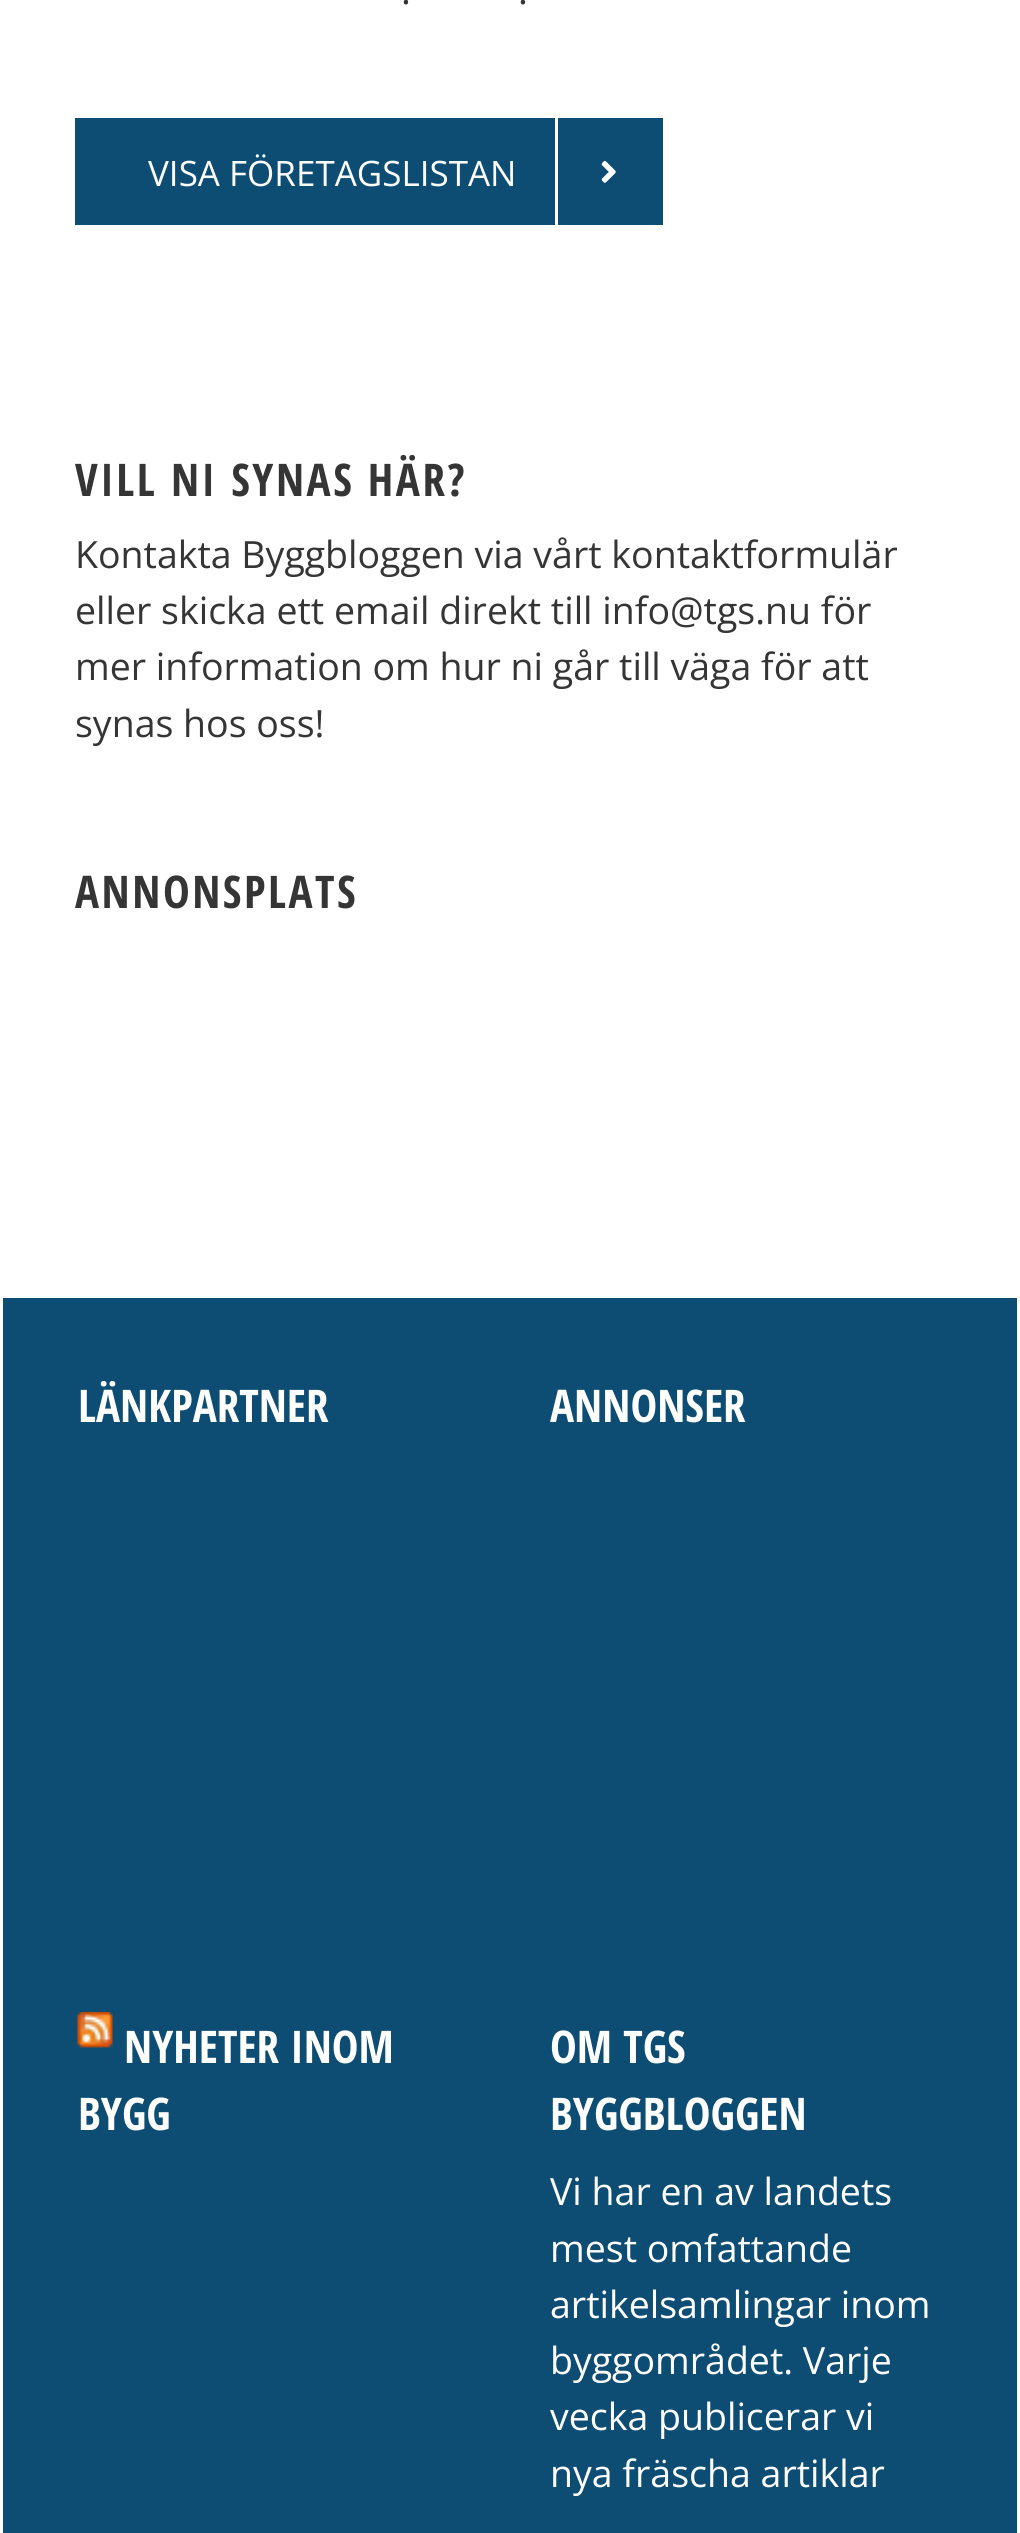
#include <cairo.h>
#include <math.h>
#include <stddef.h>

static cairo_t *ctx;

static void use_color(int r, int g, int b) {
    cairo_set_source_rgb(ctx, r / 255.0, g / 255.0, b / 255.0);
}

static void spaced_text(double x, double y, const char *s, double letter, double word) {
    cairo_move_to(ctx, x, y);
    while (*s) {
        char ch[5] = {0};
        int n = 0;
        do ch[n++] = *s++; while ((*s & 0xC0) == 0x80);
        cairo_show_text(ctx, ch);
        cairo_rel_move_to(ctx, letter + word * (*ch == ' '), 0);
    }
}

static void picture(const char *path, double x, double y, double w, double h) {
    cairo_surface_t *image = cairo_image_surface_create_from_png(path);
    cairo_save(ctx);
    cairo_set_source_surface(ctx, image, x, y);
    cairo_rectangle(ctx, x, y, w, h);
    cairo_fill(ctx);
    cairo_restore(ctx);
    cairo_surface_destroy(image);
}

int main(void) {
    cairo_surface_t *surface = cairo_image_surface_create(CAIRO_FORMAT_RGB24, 1020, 2533);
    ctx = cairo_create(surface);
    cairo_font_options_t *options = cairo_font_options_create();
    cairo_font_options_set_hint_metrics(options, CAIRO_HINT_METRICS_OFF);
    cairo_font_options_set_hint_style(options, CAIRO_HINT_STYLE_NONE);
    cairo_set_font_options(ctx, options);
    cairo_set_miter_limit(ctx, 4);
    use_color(255, 255, 255);
    cairo_paint(ctx);
    cairo_select_font_face(ctx, "Open Sans", CAIRO_FONT_SLANT_NORMAL, CAIRO_FONT_WEIGHT_NORMAL);
    cairo_set_font_size(ctx, 37.5);
    use_color(53, 53, 53);
    cairo_move_to(ctx, 401, 4);
    cairo_show_text(ctx, ".");
    cairo_move_to(ctx, 518, 4);
    cairo_show_text(ctx, ".");
    use_color(13, 76, 115);
    cairo_rectangle(ctx, 75, 118, 588, 107);
    cairo_fill(ctx);
    cairo_set_font_size(ctx, 35);
    use_color(255, 255, 255);
    cairo_move_to(ctx, 148, 186);
    cairo_show_text(ctx, "VISA FÖRETAGSLISTAN");
    cairo_rectangle(ctx, 555, 118, 3, 107);
    cairo_fill(ctx);
    picture("img1.png", 601, 161, 15, 22);
    cairo_select_font_face(ctx, "Open Sans Condensed", CAIRO_FONT_SLANT_NORMAL, CAIRO_FONT_WEIGHT_BOLD);
    cairo_set_font_size(ctx, 45);
    use_color(53, 53, 53);
    spaced_text(75, 496, "VILL NI SYNAS HÄR?", 2.5, 0);
    cairo_select_font_face(ctx, "Open Sans", CAIRO_FONT_SLANT_NORMAL, CAIRO_FONT_WEIGHT_NORMAL);
    cairo_set_font_size(ctx, 37.5);
    cairo_move_to(ctx, 75, 568);
    cairo_show_text(ctx, "Kontakta Byggbloggen via vårt kontaktformulär");
    cairo_move_to(ctx, 75, 624);
    cairo_show_text(ctx, "eller skicka ett email direkt till info@tgs.nu för");
    cairo_move_to(ctx, 75, 680);
    cairo_show_text(ctx, "mer information om hur ni går till väga för att");
    cairo_move_to(ctx, 75, 737);
    cairo_show_text(ctx, "synas hos oss!");
    cairo_select_font_face(ctx, "Open Sans Condensed", CAIRO_FONT_SLANT_NORMAL, CAIRO_FONT_WEIGHT_BOLD);
    cairo_set_font_size(ctx, 45);
    spaced_text(75, 908, "ANNONSPLATS", 2.5, 0);
    use_color(13, 76, 115);
    cairo_rectangle(ctx, 3, 1298, 1014, 1235);
    cairo_fill(ctx);
    use_color(255, 255, 255);
    cairo_move_to(ctx, 78, 1422);
    cairo_show_text(ctx, "LÄNKPARTNER");
    cairo_move_to(ctx, 550, 1422);
    cairo_show_text(ctx, "ANNONSER");
    picture("img2.png", 77, 2012, 36, 36);
    cairo_move_to(ctx, 124, 2063);
    cairo_show_text(ctx, "NYHETER INOM");
    cairo_move_to(ctx, 78, 2130);
    cairo_show_text(ctx, "BYGG");
    cairo_move_to(ctx, 550, 2063);
    cairo_show_text(ctx, "OM TGS");
    cairo_move_to(ctx, 550, 2130);
    cairo_show_text(ctx, "BYGGBLOGGEN");
    cairo_select_font_face(ctx, "Open Sans", CAIRO_FONT_SLANT_NORMAL, CAIRO_FONT_WEIGHT_NORMAL);
    cairo_set_font_size(ctx, 37.5);
    cairo_move_to(ctx, 550, 2205);
    cairo_show_text(ctx, "Vi har en av landets");
    cairo_move_to(ctx, 550, 2262);
    cairo_show_text(ctx, "mest omfattande");
    cairo_move_to(ctx, 550, 2318);
    cairo_show_text(ctx, "artikelsamlingar inom");
    cairo_move_to(ctx, 550, 2374);
    cairo_show_text(ctx, "byggområdet. Varje");
    cairo_move_to(ctx, 550, 2430);
    cairo_show_text(ctx, "vecka publicerar vi");
    cairo_move_to(ctx, 550, 2487);
    cairo_show_text(ctx, "nya fräscha artiklar");
    cairo_surface_write_to_png(surface, "result.png");
    cairo_font_options_destroy(options);
    cairo_destroy(ctx);
    cairo_surface_destroy(surface);
    return 0;
}
